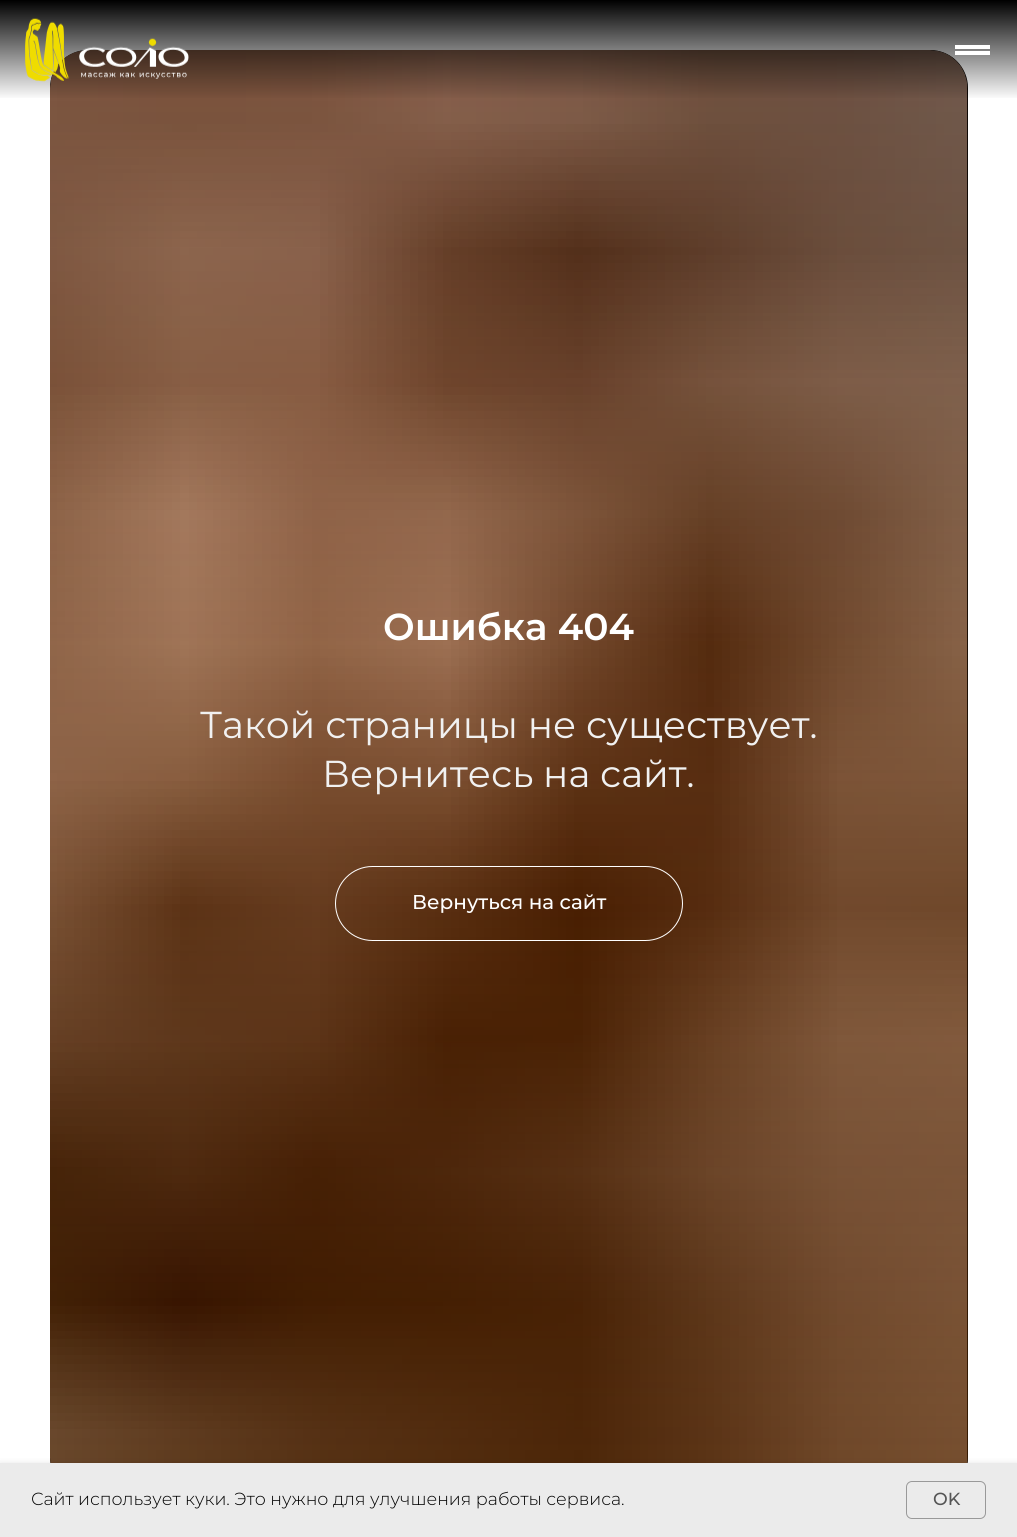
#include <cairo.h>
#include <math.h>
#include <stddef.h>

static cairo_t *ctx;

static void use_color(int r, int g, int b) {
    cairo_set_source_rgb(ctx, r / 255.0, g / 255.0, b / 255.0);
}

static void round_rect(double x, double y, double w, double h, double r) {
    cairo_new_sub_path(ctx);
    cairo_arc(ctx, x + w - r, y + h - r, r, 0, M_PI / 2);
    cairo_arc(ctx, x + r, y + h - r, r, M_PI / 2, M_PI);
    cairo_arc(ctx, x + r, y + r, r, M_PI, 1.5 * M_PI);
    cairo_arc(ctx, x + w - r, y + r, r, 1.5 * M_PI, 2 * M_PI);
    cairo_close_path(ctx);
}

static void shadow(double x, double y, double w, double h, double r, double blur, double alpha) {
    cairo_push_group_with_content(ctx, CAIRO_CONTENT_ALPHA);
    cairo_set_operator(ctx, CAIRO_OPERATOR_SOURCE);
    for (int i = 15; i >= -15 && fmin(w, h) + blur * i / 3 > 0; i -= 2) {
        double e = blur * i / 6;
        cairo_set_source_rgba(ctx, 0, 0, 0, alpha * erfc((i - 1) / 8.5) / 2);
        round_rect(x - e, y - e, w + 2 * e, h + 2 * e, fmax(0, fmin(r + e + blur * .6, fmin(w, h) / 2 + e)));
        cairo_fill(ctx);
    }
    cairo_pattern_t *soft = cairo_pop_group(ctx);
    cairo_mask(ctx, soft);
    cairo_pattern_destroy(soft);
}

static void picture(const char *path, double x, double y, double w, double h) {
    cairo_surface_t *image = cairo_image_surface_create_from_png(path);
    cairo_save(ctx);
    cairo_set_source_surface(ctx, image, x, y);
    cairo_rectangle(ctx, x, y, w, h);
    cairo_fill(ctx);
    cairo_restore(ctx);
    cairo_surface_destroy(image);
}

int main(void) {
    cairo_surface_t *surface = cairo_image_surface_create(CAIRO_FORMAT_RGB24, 1017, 1537);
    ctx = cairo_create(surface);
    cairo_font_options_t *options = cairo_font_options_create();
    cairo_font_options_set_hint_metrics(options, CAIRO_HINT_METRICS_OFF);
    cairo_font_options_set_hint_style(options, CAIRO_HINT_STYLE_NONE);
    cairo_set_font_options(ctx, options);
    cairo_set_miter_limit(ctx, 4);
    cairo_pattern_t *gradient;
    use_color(255, 255, 255);
    cairo_paint(ctx);
    use_color(0, 0, 0);
    round_rect(50, 50, 918, 1445, 38);
    cairo_fill(ctx);
    picture("img2.png", 50, 50, 918, 1413);
    gradient = cairo_pattern_create_linear(509, 50, 509, 1495);
    cairo_pattern_add_color_stop_rgba(gradient, 0, 0.137, 0.078, 0.024, 0.2);
    cairo_pattern_add_color_stop_rgba(gradient, 1, 0.29, 0.137, 0, 0.7);
    cairo_set_source(ctx, gradient);
    cairo_pattern_destroy(gradient);
    round_rect(50, 50, 918, 1445, 38);
    cairo_fill(ctx);
    gradient = cairo_pattern_create_linear(509, 0, 509, 100);
    cairo_pattern_add_color_stop_rgba(gradient, 0, 0, 0, 0, 1);
    cairo_pattern_add_color_stop_rgba(gradient, 1, 0, 0, 0, 0);
    cairo_set_source(ctx, gradient);
    cairo_pattern_destroy(gradient);
    cairo_rectangle(ctx, 0, 0, 1017, 98);
    cairo_fill(ctx);
    picture("img1.png", 25, 18, 164, 64);
    use_color(255, 255, 255);
    cairo_rectangle(ctx, 955, 45, 35, 4);
    cairo_fill(ctx);
    cairo_rectangle(ctx, 955, 51, 35, 4);
    cairo_fill(ctx);
    cairo_select_font_face(ctx, "Montserrat SemiBold", CAIRO_FONT_SLANT_NORMAL, CAIRO_FONT_WEIGHT_NORMAL);
    cairo_set_font_size(ctx, 37.5);
    cairo_move_to(ctx, 383, 640);
    cairo_show_text(ctx, "Ошибка 404");
    cairo_select_font_face(ctx, "Montserrat", CAIRO_FONT_SLANT_NORMAL, CAIRO_FONT_WEIGHT_NORMAL);
    use_color(241, 241, 241);
    cairo_move_to(ctx, 200, 738);
    cairo_show_text(ctx, "Такой страницы не существует.");
    cairo_move_to(ctx, 322, 787);
    cairo_show_text(ctx, "Вернитесь на сайт.");
    round_rect(335.5, 866.5, 347, 74, 37);
    use_color(255, 255, 255);
    cairo_set_line_width(ctx, 1);
    cairo_stroke(ctx);
    cairo_select_font_face(ctx, "Montserrat Medium", CAIRO_FONT_SLANT_NORMAL, CAIRO_FONT_WEIGHT_NORMAL);
    cairo_set_font_size(ctx, 20);
    cairo_move_to(ctx, 412, 909);
    cairo_show_text(ctx, "Вернуться на сайт");
    use_color(0, 0, 0);
    shadow(0, 1463, 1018, 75, 0, 3, 0.1);
    use_color(235, 235, 235);
    cairo_rectangle(ctx, 0, 1463, 1017, 74);
    cairo_fill(ctx);
    cairo_select_font_face(ctx, "Montserrat Light", CAIRO_FONT_SLANT_NORMAL, CAIRO_FONT_WEIGHT_NORMAL);
    cairo_set_font_size(ctx, 17.5);
    use_color(0, 0, 0);
    cairo_move_to(ctx, 31, 1505);
    cairo_show_text(ctx, "Сайт использует куки. Это нужно для улучшения работы сервиса.");
    round_rect(906.5, 1481.5, 79, 37, 5.5);
    use_color(153, 153, 153);
    cairo_stroke(ctx);
    cairo_select_font_face(ctx, "Montserrat Medium", CAIRO_FONT_SLANT_NORMAL, CAIRO_FONT_WEIGHT_NORMAL);
    use_color(85, 85, 85);
    cairo_move_to(ctx, 933, 1505);
    cairo_show_text(ctx, "OK");
    cairo_surface_write_to_png(surface, "result.png");
    cairo_font_options_destroy(options);
    cairo_destroy(ctx);
    cairo_surface_destroy(surface);
    return 0;
}
